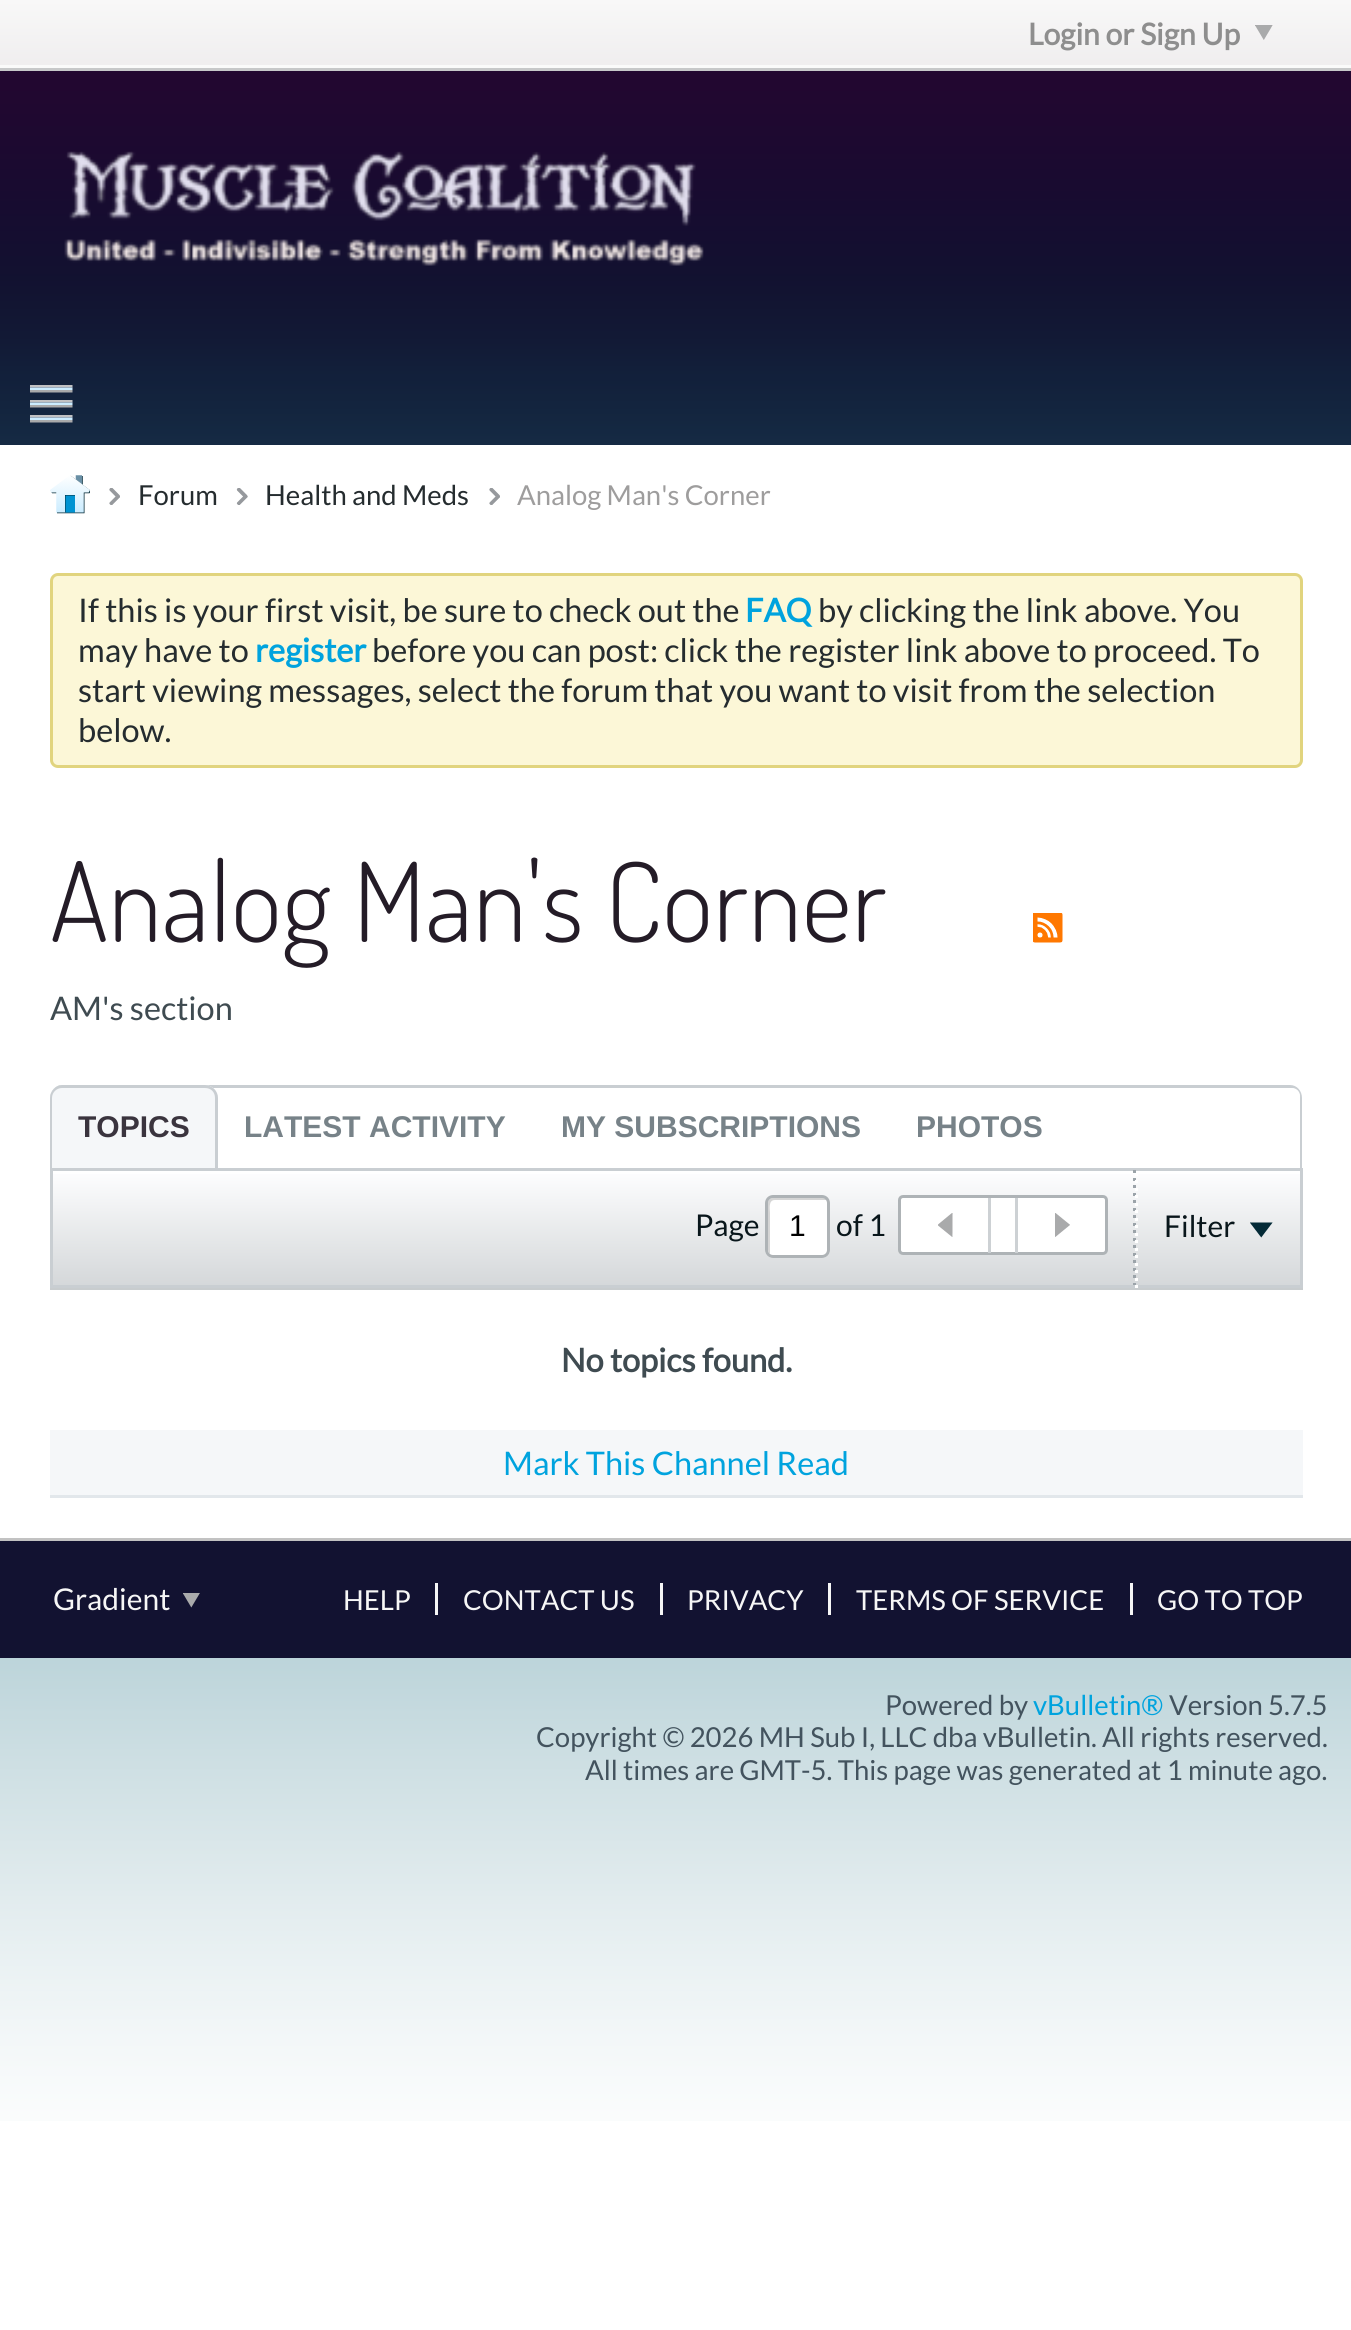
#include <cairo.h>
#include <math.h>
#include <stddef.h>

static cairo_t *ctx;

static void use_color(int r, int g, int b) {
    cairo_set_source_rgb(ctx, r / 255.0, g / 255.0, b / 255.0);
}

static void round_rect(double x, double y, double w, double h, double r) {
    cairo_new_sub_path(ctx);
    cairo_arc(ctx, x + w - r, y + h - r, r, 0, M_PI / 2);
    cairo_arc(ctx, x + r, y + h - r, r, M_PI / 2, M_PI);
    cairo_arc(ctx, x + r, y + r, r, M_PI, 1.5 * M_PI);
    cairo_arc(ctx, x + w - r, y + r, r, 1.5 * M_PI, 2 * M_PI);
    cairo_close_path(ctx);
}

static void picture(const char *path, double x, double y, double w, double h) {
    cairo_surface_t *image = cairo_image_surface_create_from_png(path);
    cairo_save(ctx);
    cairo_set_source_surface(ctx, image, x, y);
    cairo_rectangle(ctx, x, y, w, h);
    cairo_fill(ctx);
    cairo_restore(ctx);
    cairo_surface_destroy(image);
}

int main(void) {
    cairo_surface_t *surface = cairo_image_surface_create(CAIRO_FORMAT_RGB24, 1351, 2330);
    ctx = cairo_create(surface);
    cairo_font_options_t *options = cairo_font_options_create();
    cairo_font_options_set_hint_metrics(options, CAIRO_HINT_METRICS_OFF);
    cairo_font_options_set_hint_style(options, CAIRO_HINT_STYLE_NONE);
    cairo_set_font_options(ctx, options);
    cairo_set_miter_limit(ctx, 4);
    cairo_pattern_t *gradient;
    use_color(255, 255, 255);
    cairo_paint(ctx);
    picture("img1.png", 0, 71, 1351, 2050);
    gradient = cairo_pattern_create_linear(676, 0, 676, 70);
    cairo_pattern_add_color_stop_rgba(gradient, 0, 0.973, 0.973, 0.973, 1);
    cairo_pattern_add_color_stop_rgba(gradient, 1, 0.937, 0.929, 0.933, 1);
    cairo_set_source(ctx, gradient);
    cairo_pattern_destroy(gradient);
    cairo_rectangle(ctx, 0, 0, 1351, 65);
    cairo_fill(ctx);
    cairo_select_font_face(ctx, "Lato", CAIRO_FONT_SLANT_NORMAL, CAIRO_FONT_WEIGHT_BOLD);
    cairo_set_font_size(ctx, 30);
    use_color(142, 142, 142);
    cairo_move_to(ctx, 1028, 45);
    cairo_show_text(ctx, "Login or Sign Up");
    picture("img2.png", 1255, 25, 18, 15);
    use_color(250, 250, 250);
    cairo_rectangle(ctx, 0, 65, 1351, 3);
    cairo_fill(ctx);
    use_color(199, 200, 201);
    cairo_rectangle(ctx, 0, 68, 1351, 3);
    cairo_fill(ctx);
    picture("img3.png", 64, 151, 640, 115);
    picture("img4.png", 30, 385, 43, 38);
    use_color(255, 255, 255);
    cairo_rectangle(ctx, 0, 445, 1351, 1093);
    cairo_fill(ctx);
    picture("img5.png", 50, 475, 40, 39);
    picture("img6.png", 109, 488, 11, 17);
    cairo_select_font_face(ctx, "Lato", CAIRO_FONT_SLANT_NORMAL, CAIRO_FONT_WEIGHT_NORMAL);
    cairo_set_font_size(ctx, 27.5);
    use_color(37, 44, 47);
    cairo_move_to(ctx, 138, 505);
    cairo_show_text(ctx, "Forum");
    picture("img7.png", 236, 488, 12, 17);
    cairo_move_to(ctx, 265, 505);
    cairo_show_text(ctx, "Health and Meds");
    picture("img6.png", 489, 488, 11, 17);
    use_color(158, 157, 157);
    cairo_move_to(ctx, 517, 505);
    cairo_show_text(ctx, "Analog Man's Corner");
    use_color(252, 247, 215);
    round_rect(51.5, 574.5, 1250, 192, 6.5);
    cairo_fill_preserve(ctx);
    use_color(225, 212, 126);
    cairo_set_line_width(ctx, 3);
    cairo_stroke(ctx);
    cairo_set_font_size(ctx, 32.5);
    use_color(37, 44, 47);
    cairo_move_to(ctx, 78, 622);
    cairo_show_text(ctx, "If this is your first visit, be sure to check out the");
    cairo_select_font_face(ctx, "Lato", CAIRO_FONT_SLANT_NORMAL, CAIRO_FONT_WEIGHT_BOLD);
    use_color(0, 163, 222);
    cairo_move_to(ctx, 745, 622);
    cairo_show_text(ctx, "FAQ");
    cairo_select_font_face(ctx, "Lato", CAIRO_FONT_SLANT_NORMAL, CAIRO_FONT_WEIGHT_NORMAL);
    use_color(37, 44, 47);
    cairo_move_to(ctx, 818, 622);
    cairo_show_text(ctx, "by clicking the link above. You");
    cairo_move_to(ctx, 78, 662);
    cairo_show_text(ctx, "may have to");
    cairo_select_font_face(ctx, "Lato", CAIRO_FONT_SLANT_NORMAL, CAIRO_FONT_WEIGHT_BOLD);
    use_color(0, 163, 222);
    cairo_move_to(ctx, 255, 662);
    cairo_show_text(ctx, "register");
    cairo_select_font_face(ctx, "Lato", CAIRO_FONT_SLANT_NORMAL, CAIRO_FONT_WEIGHT_NORMAL);
    use_color(37, 44, 47);
    cairo_move_to(ctx, 372, 662);
    cairo_show_text(ctx, "before you can post: click the register link above to proceed. To");
    cairo_move_to(ctx, 78, 702);
    cairo_show_text(ctx, "start viewing messages, select the forum that you want to visit from the selection");
    cairo_move_to(ctx, 78, 742);
    cairo_show_text(ctx, "below.");
    cairo_select_font_face(ctx, "Dosis Light", CAIRO_FONT_SLANT_NORMAL, CAIRO_FONT_WEIGHT_NORMAL);
    cairo_set_font_size(ctx, 110);
    use_color(36, 28, 39);
    cairo_move_to(ctx, 50, 942);
    cairo_show_text(ctx, "Analog Man's Corner");
    picture("img8.png", 1033, 913, 30, 30);
    cairo_select_font_face(ctx, "Lato", CAIRO_FONT_SLANT_NORMAL, CAIRO_FONT_WEIGHT_NORMAL);
    cairo_set_font_size(ctx, 32.5);
    use_color(63, 75, 81);
    cairo_move_to(ctx, 50, 1020);
    cairo_show_text(ctx, "AM's section");
    use_color(201, 206, 210);
    cairo_set_fill_rule(ctx, CAIRO_FILL_RULE_EVEN_ODD);
    cairo_new_path(ctx);
    cairo_move_to(ctx, 62, 1085);
    cairo_line_to(ctx, 1290, 1085);
    cairo_curve_to(ctx, 1297, 1085, 1302, 1091, 1302, 1098);
    cairo_line_to(ctx, 1302, 1168);
    cairo_line_to(ctx, 50, 1168);
    cairo_line_to(ctx, 50, 1098);
    cairo_curve_to(ctx, 50, 1091, 56, 1085, 62, 1085);
    cairo_close_path(ctx);
    cairo_move_to(ctx, 62, 1088);
    cairo_line_to(ctx, 1290, 1088);
    cairo_curve_to(ctx, 1296, 1088, 1300, 1092, 1300, 1098);
    cairo_line_to(ctx, 1300, 1168);
    cairo_line_to(ctx, 52, 1168);
    cairo_line_to(ctx, 52, 1098);
    cairo_curve_to(ctx, 52, 1092, 57, 1088, 62, 1088);
    cairo_close_path(ctx);
    cairo_fill(ctx);
    use_color(255, 255, 255);
    cairo_new_path(ctx);
    cairo_move_to(ctx, 61, 1088);
    cairo_line_to(ctx, 1292, 1088);
    cairo_curve_to(ctx, 1296.5, 1088, 1300, 1091.5, 1300, 1096);
    cairo_line_to(ctx, 1300, 1168);
    cairo_line_to(ctx, 61, 1168);
    cairo_curve_to(ctx, 56.5, 1168, 53, 1164.5, 53, 1160);
    cairo_line_to(ctx, 53, 1096);
    cairo_curve_to(ctx, 53, 1091.5, 56.5, 1088, 61, 1088);
    cairo_close_path(ctx);
    cairo_fill(ctx);
    use_color(245, 247, 249);
    cairo_new_path(ctx);
    cairo_move_to(ctx, 63, 1085);
    cairo_line_to(ctx, 205, 1085);
    cairo_curve_to(ctx, 212, 1085, 218, 1091, 218, 1098);
    cairo_line_to(ctx, 218, 1168);
    cairo_line_to(ctx, 50, 1168);
    cairo_line_to(ctx, 50, 1098);
    cairo_curve_to(ctx, 50, 1091, 56, 1085, 63, 1085);
    cairo_close_path(ctx);
    cairo_fill(ctx);
    use_color(201, 206, 210);
    cairo_new_path(ctx);
    cairo_move_to(ctx, 62, 1085);
    cairo_line_to(ctx, 205, 1085);
    cairo_curve_to(ctx, 212, 1085, 218, 1091, 218, 1098);
    cairo_line_to(ctx, 218, 1168);
    cairo_line_to(ctx, 50, 1168);
    cairo_line_to(ctx, 50, 1098);
    cairo_curve_to(ctx, 50, 1091, 56, 1085, 62, 1085);
    cairo_close_path(ctx);
    cairo_move_to(ctx, 62, 1088);
    cairo_line_to(ctx, 205, 1088);
    cairo_curve_to(ctx, 211, 1088, 215, 1092, 215, 1098);
    cairo_line_to(ctx, 215, 1168);
    cairo_line_to(ctx, 52, 1168);
    cairo_line_to(ctx, 52, 1098);
    cairo_curve_to(ctx, 52, 1092, 57, 1088, 62, 1088);
    cairo_close_path(ctx);
    cairo_fill(ctx);
    cairo_select_font_face(ctx, "Liberation Sans", CAIRO_FONT_SLANT_NORMAL, CAIRO_FONT_WEIGHT_BOLD);
    cairo_set_font_size(ctx, 30);
    use_color(58, 52, 62);
    cairo_move_to(ctx, 78, 1137);
    cairo_show_text(ctx, "TOPICS");
    use_color(119, 130, 136);
    cairo_move_to(ctx, 244, 1137);
    cairo_show_text(ctx, "LATEST ACTIVITY");
    cairo_move_to(ctx, 561, 1137);
    cairo_show_text(ctx, "MY SUBSCRIPTIONS");
    cairo_move_to(ctx, 916, 1137);
    cairo_show_text(ctx, "PHOTOS");
    gradient = cairo_pattern_create_linear(676, 1170, 676, 1285);
    cairo_pattern_add_color_stop_rgba(gradient, 0, 0.996, 0.996, 1, 1);
    cairo_pattern_add_color_stop_rgba(gradient, 1, 0.835, 0.847, 0.855, 1);
    cairo_set_source(ctx, gradient);
    cairo_pattern_destroy(gradient);
    cairo_rectangle(ctx, 53, 1174, 1247, 111);
    cairo_fill(ctx);
    cairo_rectangle(ctx, 51.5, 1169.5, 1250, 117);
    use_color(201, 206, 210);
    cairo_stroke(ctx);
    cairo_select_font_face(ctx, "Lato", CAIRO_FONT_SLANT_NORMAL, CAIRO_FONT_WEIGHT_NORMAL);
    use_color(9, 22, 27);
    cairo_move_to(ctx, 695, 1236);
    cairo_show_text(ctx, "Page");
    use_color(255, 255, 255);
    round_rect(765, 1195, 65, 63, 8);
    cairo_fill(ctx);
    use_color(213, 213, 213);
    cairo_set_fill_rule(ctx, CAIRO_FILL_RULE_WINDING);
    cairo_new_path(ctx);
    cairo_move_to(ctx, 775, 1200);
    cairo_line_to(ctx, 825, 1200);
    cairo_line_to(ctx, 827, 1200);
    cairo_curve_to(ctx, 826, 1199, 825, 1198, 823, 1198);
    cairo_line_to(ctx, 773, 1198);
    cairo_curve_to(ctx, 770, 1198, 768, 1200, 768, 1203);
    cairo_line_to(ctx, 768, 1250);
    cairo_curve_to(ctx, 768, 1252, 769, 1253, 770, 1254);
    cairo_line_to(ctx, 770, 1213);
    cairo_curve_to(ctx, 770, 1209, 768, 1200, 775, 1200);
    cairo_close_path(ctx);
    cairo_fill(ctx);
    round_rect(766.5, 1196.5, 62, 60, 6.5);
    use_color(174, 179, 182);
    cairo_stroke(ctx);
    cairo_select_font_face(ctx, "Liberation Sans", CAIRO_FONT_SLANT_NORMAL, CAIRO_FONT_WEIGHT_NORMAL);
    use_color(0, 0, 0);
    cairo_move_to(ctx, 789, 1236);
    cairo_show_text(ctx, "1");
    cairo_select_font_face(ctx, "Lato", CAIRO_FONT_SLANT_NORMAL, CAIRO_FONT_WEIGHT_NORMAL);
    use_color(9, 22, 27);
    cairo_move_to(ctx, 836, 1236);
    cairo_show_text(ctx, "of 1");
    use_color(255, 255, 255);
    round_rect(899.5, 1196.5, 207, 57, 3.5);
    cairo_fill_preserve(ctx);
    use_color(174, 179, 182);
    cairo_stroke(ctx);
    use_color(205, 209, 212);
    cairo_rectangle(ctx, 988, 1198, 3, 55);
    cairo_fill(ctx);
    picture("img9.png", 938, 1213, 15, 24);
    cairo_rectangle(ctx, 1015, 1198, 3, 55);
    cairo_fill(ctx);
    picture("img10.png", 1055, 1213, 15, 24);
    use_color(155, 163, 169);
    cairo_rectangle(ctx, 1133, 1170, 3, 3);
    cairo_fill(ctx);
    cairo_rectangle(ctx, 1133, 1178, 3, 3);
    cairo_fill(ctx);
    cairo_rectangle(ctx, 1133, 1185, 3, 3);
    cairo_fill(ctx);
    cairo_rectangle(ctx, 1133, 1193, 3, 3);
    cairo_fill(ctx);
    cairo_rectangle(ctx, 1133, 1200, 3, 3);
    cairo_fill(ctx);
    cairo_rectangle(ctx, 1133, 1208, 3, 3);
    cairo_fill(ctx);
    cairo_rectangle(ctx, 1133, 1215, 3, 3);
    cairo_fill(ctx);
    cairo_rectangle(ctx, 1133, 1223, 3, 3);
    cairo_fill(ctx);
    cairo_rectangle(ctx, 1133, 1230, 3, 3);
    cairo_fill(ctx);
    cairo_rectangle(ctx, 1133, 1238, 3, 3);
    cairo_fill(ctx);
    cairo_rectangle(ctx, 1133, 1245, 3, 3);
    cairo_fill(ctx);
    cairo_rectangle(ctx, 1133, 1253, 3, 3);
    cairo_fill(ctx);
    cairo_rectangle(ctx, 1133, 1260, 3, 3);
    cairo_fill(ctx);
    cairo_rectangle(ctx, 1133, 1268, 3, 3);
    cairo_fill(ctx);
    cairo_rectangle(ctx, 1133, 1275, 3, 3);
    cairo_fill(ctx);
    cairo_rectangle(ctx, 1133, 1283, 3, 2);
    cairo_fill(ctx);
    use_color(255, 255, 255);
    cairo_rectangle(ctx, 1135, 1174, 3, 2);
    cairo_fill(ctx);
    cairo_rectangle(ctx, 1135, 1180, 3, 3);
    cairo_fill(ctx);
    cairo_rectangle(ctx, 1135, 1188, 3, 3);
    cairo_fill(ctx);
    cairo_rectangle(ctx, 1135, 1195, 3, 3);
    cairo_fill(ctx);
    cairo_rectangle(ctx, 1135, 1203, 3, 3);
    cairo_fill(ctx);
    cairo_rectangle(ctx, 1135, 1210, 3, 3);
    cairo_fill(ctx);
    cairo_rectangle(ctx, 1135, 1218, 3, 3);
    cairo_fill(ctx);
    cairo_rectangle(ctx, 1135, 1225, 3, 3);
    cairo_fill(ctx);
    cairo_rectangle(ctx, 1135, 1233, 3, 3);
    cairo_fill(ctx);
    cairo_rectangle(ctx, 1135, 1240, 3, 3);
    cairo_fill(ctx);
    cairo_rectangle(ctx, 1135, 1248, 3, 3);
    cairo_fill(ctx);
    cairo_rectangle(ctx, 1135, 1255, 3, 3);
    cairo_fill(ctx);
    cairo_rectangle(ctx, 1135, 1263, 3, 3);
    cairo_fill(ctx);
    cairo_rectangle(ctx, 1135, 1270, 3, 3);
    cairo_fill(ctx);
    cairo_rectangle(ctx, 1135, 1278, 3, 3);
    cairo_fill(ctx);
    cairo_rectangle(ctx, 1135, 1285, 3, 3);
    cairo_fill(ctx);
    use_color(9, 22, 27);
    cairo_move_to(ctx, 1164, 1237);
    cairo_show_text(ctx, "Filter");
    picture("img11.png", 1250, 1222, 23, 16);
    use_color(200, 204, 206);
    cairo_rectangle(ctx, 50, 1288, 1253, 2);
    cairo_fill(ctx);
    cairo_select_font_face(ctx, "Lato", CAIRO_FONT_SLANT_NORMAL, CAIRO_FONT_WEIGHT_BOLD);
    cairo_set_font_size(ctx, 32.5);
    use_color(63, 75, 81);
    cairo_move_to(ctx, 561, 1372);
    cairo_show_text(ctx, "No topics found.");
    use_color(245, 247, 249);
    cairo_rectangle(ctx, 50, 1430, 1253, 65);
    cairo_fill(ctx);
    use_color(226, 231, 235);
    cairo_rectangle(ctx, 50, 1495, 1253, 3);
    cairo_fill(ctx);
    cairo_select_font_face(ctx, "Lato", CAIRO_FONT_SLANT_NORMAL, CAIRO_FONT_WEIGHT_NORMAL);
    use_color(0, 163, 222);
    cairo_move_to(ctx, 503, 1475);
    cairo_show_text(ctx, "Mark This Channel Read");
    use_color(18, 18, 49);
    cairo_rectangle(ctx, 0, 1541, 1351, 117);
    cairo_fill(ctx);
    use_color(194, 194, 194);
    cairo_rectangle(ctx, 0, 1538, 1351, 3);
    cairo_fill(ctx);
    cairo_set_font_size(ctx, 30);
    use_color(246, 246, 246);
    cairo_move_to(ctx, 53, 1610);
    cairo_show_text(ctx, "Gradient");
    picture("img12.png", 183, 1593, 17, 15);
    cairo_set_font_size(ctx, 27.5);
    cairo_move_to(ctx, 343, 1610);
    cairo_show_text(ctx, "HELP");
    cairo_move_to(ctx, 463, 1610);
    cairo_show_text(ctx, "CONTACT US");
    cairo_rectangle(ctx, 435, 1583, 3, 32);
    cairo_fill(ctx);
    cairo_move_to(ctx, 687, 1610);
    cairo_show_text(ctx, "PRIVACY");
    cairo_rectangle(ctx, 660, 1583, 3, 32);
    cairo_fill(ctx);
    cairo_move_to(ctx, 856, 1610);
    cairo_show_text(ctx, "TERMS OF SERVICE");
    cairo_rectangle(ctx, 828, 1583, 3, 32);
    cairo_fill(ctx);
    cairo_move_to(ctx, 1157, 1610);
    cairo_show_text(ctx, "GO TO TOP");
    cairo_rectangle(ctx, 1130, 1583, 3, 32);
    cairo_fill(ctx);
    use_color(67, 83, 94);
    cairo_move_to(ctx, 885, 1715);
    cairo_show_text(ctx, "Powered by");
    use_color(0, 163, 222);
    cairo_move_to(ctx, 1033, 1715);
    cairo_show_text(ctx, "vBulletin®");
    use_color(67, 83, 94);
    cairo_move_to(ctx, 1169, 1715);
    cairo_show_text(ctx, "Version 5.7.5");
    cairo_move_to(ctx, 536, 1747);
    cairo_show_text(ctx, "Copyright © 2026 MH Sub I, LLC dba vBulletin. All rights reserved.");
    cairo_move_to(ctx, 585, 1780);
    cairo_show_text(ctx, "All times are GMT-5. This page was generated at 1 minute ago.");
    cairo_surface_write_to_png(surface, "result.png");
    cairo_font_options_destroy(options);
    cairo_destroy(ctx);
    cairo_surface_destroy(surface);
    return 0;
}
